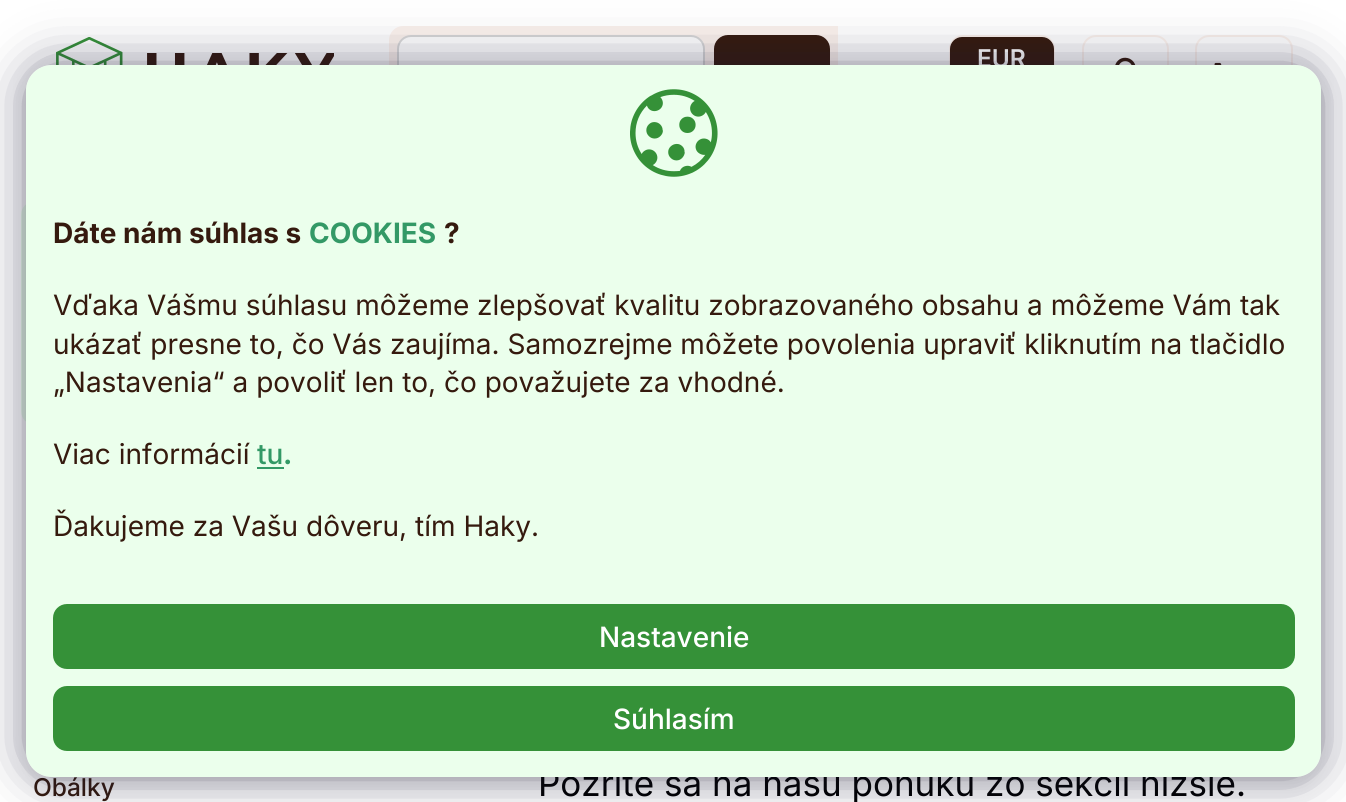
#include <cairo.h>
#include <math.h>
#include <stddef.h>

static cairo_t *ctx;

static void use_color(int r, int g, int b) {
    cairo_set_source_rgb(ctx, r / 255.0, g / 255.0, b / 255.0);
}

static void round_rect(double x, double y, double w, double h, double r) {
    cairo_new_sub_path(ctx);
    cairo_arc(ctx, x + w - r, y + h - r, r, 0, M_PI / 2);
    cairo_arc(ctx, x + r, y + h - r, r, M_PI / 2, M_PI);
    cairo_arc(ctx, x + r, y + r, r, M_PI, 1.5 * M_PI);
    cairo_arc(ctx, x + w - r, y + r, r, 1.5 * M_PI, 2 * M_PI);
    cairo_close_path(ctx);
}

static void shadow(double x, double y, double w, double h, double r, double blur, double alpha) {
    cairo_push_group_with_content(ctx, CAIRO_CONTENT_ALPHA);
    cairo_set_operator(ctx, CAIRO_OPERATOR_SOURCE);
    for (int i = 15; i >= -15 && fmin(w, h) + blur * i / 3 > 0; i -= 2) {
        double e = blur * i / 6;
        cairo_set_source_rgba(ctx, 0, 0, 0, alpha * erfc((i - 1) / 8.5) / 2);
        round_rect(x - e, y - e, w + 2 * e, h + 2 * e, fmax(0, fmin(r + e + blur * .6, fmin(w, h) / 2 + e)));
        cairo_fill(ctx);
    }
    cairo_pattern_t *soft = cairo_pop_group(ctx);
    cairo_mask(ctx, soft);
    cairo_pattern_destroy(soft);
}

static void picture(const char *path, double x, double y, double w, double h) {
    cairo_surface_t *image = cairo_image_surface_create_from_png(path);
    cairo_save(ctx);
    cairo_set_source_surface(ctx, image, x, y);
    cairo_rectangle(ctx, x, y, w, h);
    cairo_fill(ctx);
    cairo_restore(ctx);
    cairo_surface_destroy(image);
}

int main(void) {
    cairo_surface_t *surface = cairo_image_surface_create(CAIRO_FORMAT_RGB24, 1346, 802);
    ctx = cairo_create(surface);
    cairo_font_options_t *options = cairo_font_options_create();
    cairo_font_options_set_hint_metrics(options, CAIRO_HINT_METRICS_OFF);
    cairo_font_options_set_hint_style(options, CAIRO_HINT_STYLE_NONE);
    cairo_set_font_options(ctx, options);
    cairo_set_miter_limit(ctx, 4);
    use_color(255, 255, 255);
    cairo_paint(ctx);
    picture("img1.png", 56, 37, 278, 28);
    use_color(252, 242, 237);
    cairo_new_path(ctx);
    cairo_move_to(ctx, 403, 26);
    cairo_line_to(ctx, 838, 26);
    cairo_line_to(ctx, 838, 131);
    cairo_line_to(ctx, 403, 131);
    cairo_curve_to(ctx, 395.5, 131, 389, 124.5, 389, 117);
    cairo_line_to(ctx, 389, 40);
    cairo_curve_to(ctx, 389, 32.5, 395.5, 26, 403, 26);
    cairo_close_path(ctx);
    cairo_fill(ctx);
    use_color(255, 255, 255);
    round_rect(398, 36, 306, 86, 13);
    cairo_fill_preserve(ctx);
    use_color(216, 216, 216);
    cairo_stroke(ctx);
    use_color(53, 26, 14);
    round_rect(714, 35, 116, 88, 14);
    cairo_fill(ctx);
    round_rect(950, 36, 104, 86, 13);
    use_color(252, 242, 237);
    cairo_stroke(ctx);
    use_color(53, 26, 14);
    cairo_new_path(ctx);
    cairo_move_to(ctx, 962, 37);
    cairo_line_to(ctx, 1042, 37);
    cairo_curve_to(ctx, 1048.5, 37, 1054, 42.5, 1054, 49);
    cairo_line_to(ctx, 1054, 79);
    cairo_line_to(ctx, 950, 79);
    cairo_line_to(ctx, 950, 49);
    cairo_curve_to(ctx, 950, 42.5, 955.5, 37, 962, 37);
    cairo_close_path(ctx);
    cairo_fill(ctx);
    cairo_select_font_face(ctx, "Inter SemiBold", CAIRO_FONT_SLANT_NORMAL, CAIRO_FONT_WEIGHT_NORMAL);
    cairo_set_font_size(ctx, 24.5);
    use_color(255, 255, 255);
    cairo_move_to(ctx, 977, 67);
    cairo_show_text(ctx, "EUR");
    round_rect(1083, 36, 85, 86, 13);
    use_color(252, 242, 237);
    cairo_stroke(ctx);
    picture("img2.png", 1115, 57, 21, 8);
    round_rect(1196, 36, 96, 86, 13);
    cairo_stroke(ctx);
    picture("img3.png", 1214, 62, 8, 3);
    use_color(235, 255, 236);
    round_rect(21, 201, 438, 224, 14);
    cairo_fill(ctx);
    cairo_select_font_face(ctx, "Inter Medium", CAIRO_FONT_SLANT_NORMAL, CAIRO_FONT_WEIGHT_NORMAL);
    use_color(53, 26, 14);
    cairo_move_to(ctx, 33, 796);
    cairo_show_text(ctx, "Obálky");
    cairo_select_font_face(ctx, "Inter", CAIRO_FONT_SLANT_NORMAL, CAIRO_FONT_WEIGHT_NORMAL);
    cairo_set_font_size(ctx, 35);
    use_color(0, 0, 0);
    cairo_move_to(ctx, 538, 796);
    cairo_show_text(ctx, "Pozrite sa na našu ponuku zo sekcií nižšie.");
    use_color(0, 0, 0);
    shadow(26, 56, 1295, 712, 26, 9, 0.05);
    shadow(26, 74, 1295, 712, 26, 9, 0.1);
    use_color(235, 255, 236);
    round_rect(26, 65, 1295, 712, 26);
    cairo_fill(ctx);
    cairo_save(ctx);
    cairo_set_fill_rule(ctx, CAIRO_FILL_RULE_EVEN_ODD);
    cairo_new_path(ctx);
    cairo_move_to(ctx, 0, 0);
    cairo_line_to(ctx, 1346, 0);
    cairo_line_to(ctx, 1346, 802);
    cairo_line_to(ctx, 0, 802);
    cairo_close_path(ctx);
    cairo_move_to(ctx, 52, 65);
    cairo_line_to(ctx, 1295, 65);
    cairo_curve_to(ctx, 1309.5, 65, 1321, 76.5, 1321, 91);
    cairo_line_to(ctx, 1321, 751);
    cairo_curve_to(ctx, 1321, 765.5, 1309.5, 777, 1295, 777);
    cairo_line_to(ctx, 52, 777);
    cairo_curve_to(ctx, 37.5, 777, 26, 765.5, 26, 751);
    cairo_line_to(ctx, 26, 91);
    cairo_curve_to(ctx, 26, 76.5, 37.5, 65, 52, 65);
    cairo_close_path(ctx);
    cairo_clip(ctx);
    use_color(27, 25, 57);
    shadow(26, 65, 1295, 712, 26, 26, 0.5);
    cairo_restore(ctx);
    picture("img4.png", 630, 89, 88, 88);
    cairo_select_font_face(ctx, "Inter", CAIRO_FONT_SLANT_NORMAL, CAIRO_FONT_WEIGHT_BOLD);
    cairo_set_font_size(ctx, 28);
    use_color(53, 26, 14);
    cairo_move_to(ctx, 53, 243);
    cairo_show_text(ctx, "Dáte nám súhlas s");
    use_color(51, 153, 102);
    cairo_move_to(ctx, 309, 243);
    cairo_show_text(ctx, "COOKIES");
    use_color(53, 26, 14);
    cairo_move_to(ctx, 444, 243);
    cairo_show_text(ctx, "?");
    cairo_select_font_face(ctx, "Inter", CAIRO_FONT_SLANT_NORMAL, CAIRO_FONT_WEIGHT_NORMAL);
    cairo_move_to(ctx, 53, 315);
    cairo_show_text(ctx, "Vďaka Vášmu súhlasu môžeme zlepšovať kvalitu zobrazovaného obsahu a môžeme Vám tak");
    cairo_move_to(ctx, 53, 354);
    cairo_show_text(ctx, "ukázať presne to, čo Vás zaujíma. Samozrejme môžete povolenia upraviť kliknutím na tlačidlo");
    cairo_move_to(ctx, 53, 392);
    cairo_show_text(ctx, "„Nastavenia“ a povoliť len to, čo považujete za vhodné.");
    cairo_move_to(ctx, 53, 464);
    cairo_show_text(ctx, "Viac informácií");
    cairo_select_font_face(ctx, "Inter Medium", CAIRO_FONT_SLANT_NORMAL, CAIRO_FONT_WEIGHT_NORMAL);
    use_color(51, 153, 102);
    cairo_move_to(ctx, 257, 464);
    cairo_show_text(ctx, "tu");
    cairo_select_font_face(ctx, "Inter", CAIRO_FONT_SLANT_NORMAL, CAIRO_FONT_WEIGHT_BOLD);
    cairo_move_to(ctx, 283, 464);
    cairo_show_text(ctx, ".");
    cairo_rectangle(ctx, 257, 467, 27, 2);
    cairo_fill(ctx);
    cairo_select_font_face(ctx, "Inter", CAIRO_FONT_SLANT_NORMAL, CAIRO_FONT_WEIGHT_NORMAL);
    use_color(53, 26, 14);
    cairo_move_to(ctx, 53, 536);
    cairo_show_text(ctx, "Ďakujeme za Vašu dôveru, tím Haky.");
    use_color(53, 145, 56);
    round_rect(54, 605, 1240, 63, 13);
    cairo_fill_preserve(ctx);
    cairo_stroke(ctx);
    cairo_select_font_face(ctx, "Inter Medium", CAIRO_FONT_SLANT_NORMAL, CAIRO_FONT_WEIGHT_NORMAL);
    use_color(255, 255, 255);
    cairo_move_to(ctx, 599, 647);
    cairo_show_text(ctx, "Nastavenie");
    use_color(53, 145, 56);
    round_rect(54, 687, 1240, 63, 13);
    cairo_fill_preserve(ctx);
    cairo_stroke(ctx);
    use_color(255, 255, 255);
    cairo_move_to(ctx, 613, 729);
    cairo_show_text(ctx, "Súhlasím");
    cairo_surface_write_to_png(surface, "result.png");
    cairo_font_options_destroy(options);
    cairo_destroy(ctx);
    cairo_surface_destroy(surface);
    return 0;
}
